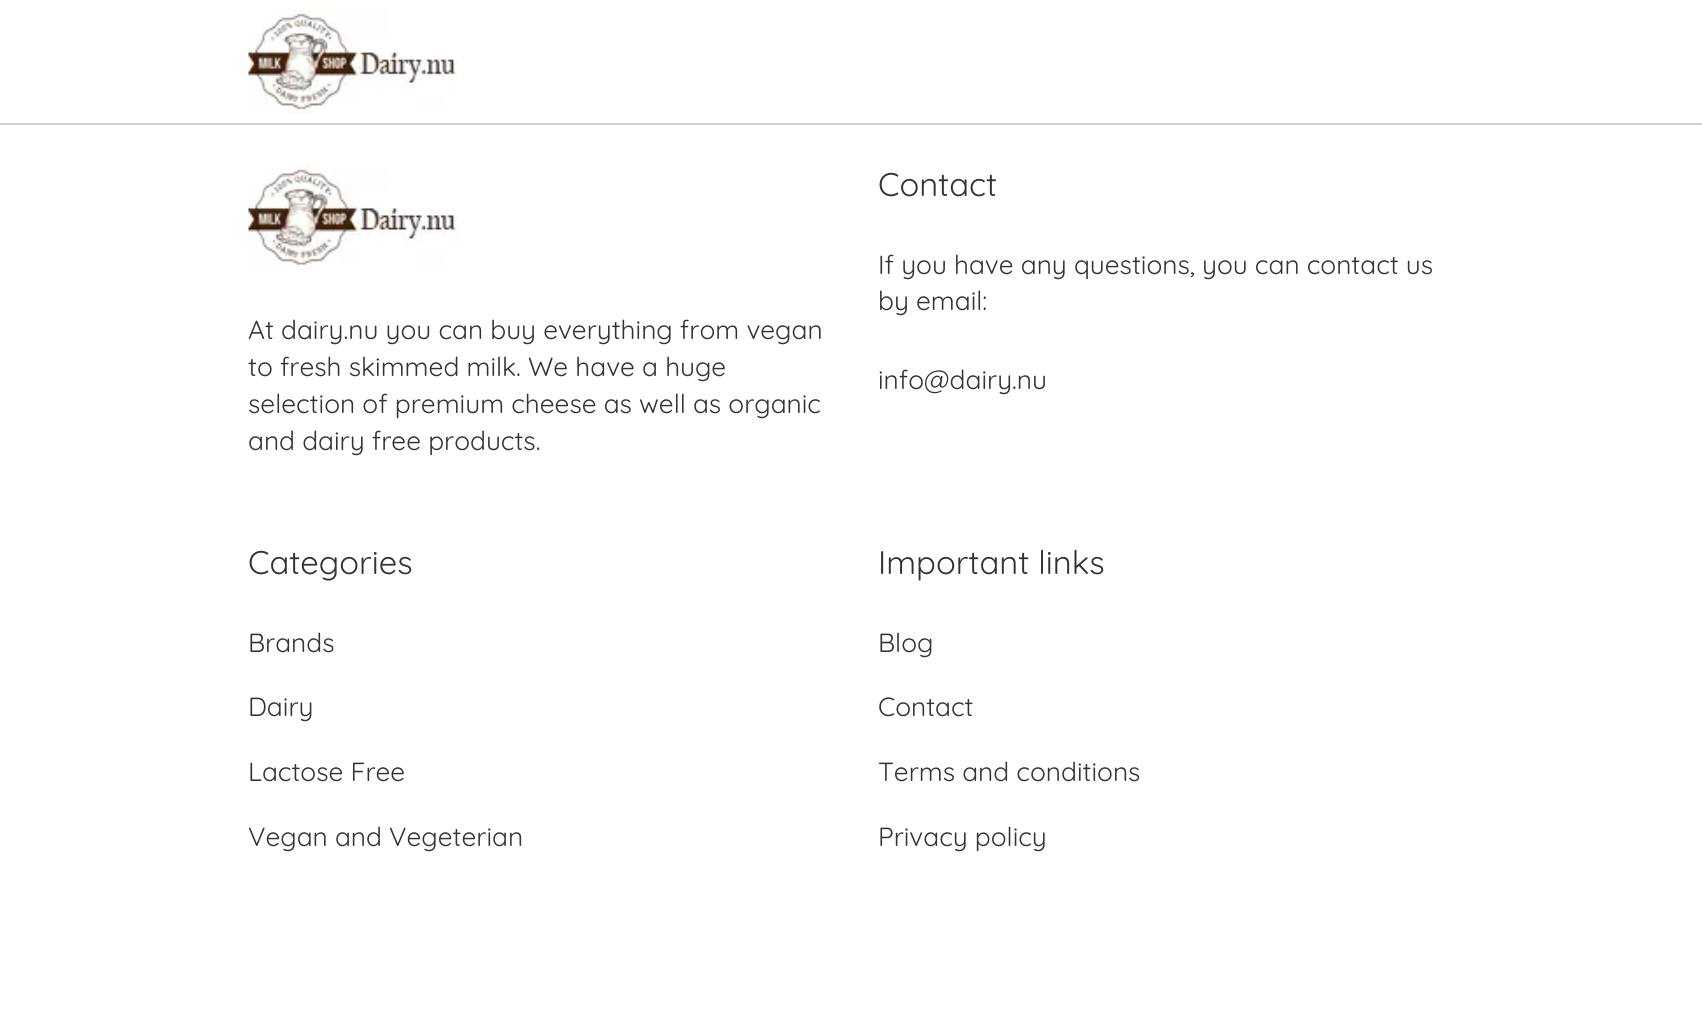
#include <cairo.h>
#include <math.h>
#include <stddef.h>

static cairo_t *ctx;

static void use_color(int r, int g, int b) {
    cairo_set_source_rgb(ctx, r / 255.0, g / 255.0, b / 255.0);
}

static void picture(const char *path, double x, double y, double w, double h) {
    cairo_surface_t *image = cairo_image_surface_create_from_png(path);
    cairo_save(ctx);
    cairo_set_source_surface(ctx, image, x, y);
    cairo_rectangle(ctx, x, y, w, h);
    cairo_fill(ctx);
    cairo_restore(ctx);
    cairo_surface_destroy(image);
}

int main(void) {
    cairo_surface_t *surface = cairo_image_surface_create(CAIRO_FORMAT_RGB24, 1702, 1009);
    ctx = cairo_create(surface);
    cairo_font_options_t *options = cairo_font_options_create();
    cairo_font_options_set_hint_metrics(options, CAIRO_HINT_METRICS_OFF);
    cairo_font_options_set_hint_style(options, CAIRO_HINT_STYLE_NONE);
    cairo_set_font_options(ctx, options);
    cairo_set_miter_limit(ctx, 4);
    use_color(255, 255, 255);
    cairo_paint(ctx);
    use_color(209, 209, 209);
    cairo_rectangle(ctx, 0, 123, 1702, 2);
    cairo_fill(ctx);
    picture("img1.png", 248, 9, 211, 105);
    picture("img2.png", 248, 165, 211, 105);
    cairo_select_font_face(ctx, "Quicksand", CAIRO_FONT_SLANT_NORMAL, CAIRO_FONT_WEIGHT_NORMAL);
    cairo_set_font_size(ctx, 26.25);
    use_color(51, 51, 51);
    cairo_move_to(ctx, 248, 339);
    cairo_show_text(ctx, "At dairy.nu you can buy everything from vegan");
    cairo_move_to(ctx, 248, 376);
    cairo_show_text(ctx, "to fresh skimmed milk. We have a huge");
    cairo_move_to(ctx, 248, 413);
    cairo_show_text(ctx, "selection of premium cheese as well as organic");
    cairo_move_to(ctx, 248, 450);
    cairo_show_text(ctx, "and dairy free products.");
    cairo_set_font_size(ctx, 32.75);
    cairo_move_to(ctx, 878, 196);
    cairo_show_text(ctx, "Contact");
    cairo_set_font_size(ctx, 26.25);
    cairo_move_to(ctx, 878, 274);
    cairo_show_text(ctx, "If you have any questions, you can contact us");
    cairo_move_to(ctx, 878, 310);
    cairo_show_text(ctx, "by email:");
    cairo_move_to(ctx, 878, 389);
    cairo_show_text(ctx, "info@dairy.nu");
    cairo_set_font_size(ctx, 32.75);
    cairo_move_to(ctx, 248, 574);
    cairo_show_text(ctx, "Categories");
    cairo_set_font_size(ctx, 26.25);
    cairo_move_to(ctx, 248, 652);
    cairo_show_text(ctx, "Brands");
    cairo_move_to(ctx, 248, 716);
    cairo_show_text(ctx, "Dairy");
    cairo_move_to(ctx, 248, 781);
    cairo_show_text(ctx, "Lactose Free");
    cairo_move_to(ctx, 248, 846);
    cairo_show_text(ctx, "Vegan and Vegeterian");
    cairo_set_font_size(ctx, 32.75);
    cairo_move_to(ctx, 878, 574);
    cairo_show_text(ctx, "Important links");
    cairo_set_font_size(ctx, 26.25);
    cairo_move_to(ctx, 878, 652);
    cairo_show_text(ctx, "Blog");
    cairo_move_to(ctx, 878, 716);
    cairo_show_text(ctx, "Contact");
    cairo_move_to(ctx, 878, 781);
    cairo_show_text(ctx, "Terms and conditions");
    cairo_move_to(ctx, 878, 846);
    cairo_show_text(ctx, "Privacy policy");
    cairo_surface_write_to_png(surface, "result.png");
    cairo_font_options_destroy(options);
    cairo_destroy(ctx);
    cairo_surface_destroy(surface);
    return 0;
}
